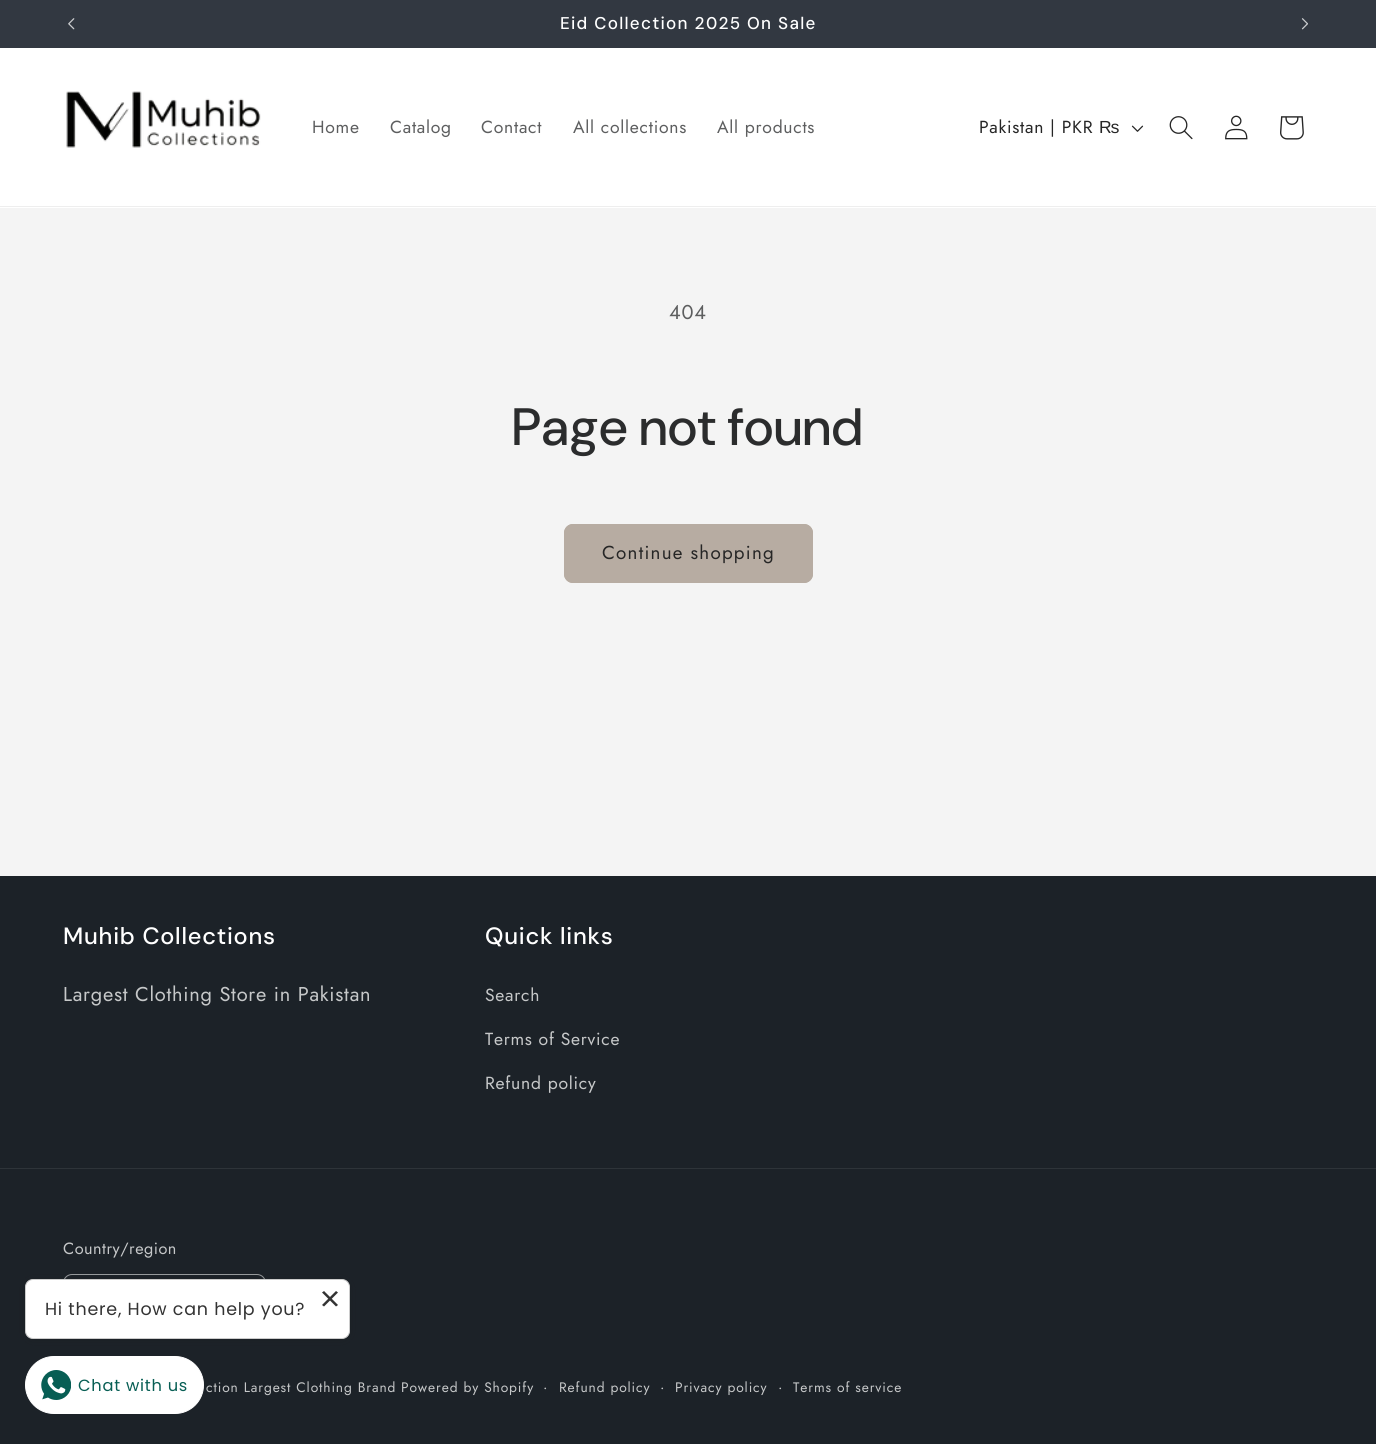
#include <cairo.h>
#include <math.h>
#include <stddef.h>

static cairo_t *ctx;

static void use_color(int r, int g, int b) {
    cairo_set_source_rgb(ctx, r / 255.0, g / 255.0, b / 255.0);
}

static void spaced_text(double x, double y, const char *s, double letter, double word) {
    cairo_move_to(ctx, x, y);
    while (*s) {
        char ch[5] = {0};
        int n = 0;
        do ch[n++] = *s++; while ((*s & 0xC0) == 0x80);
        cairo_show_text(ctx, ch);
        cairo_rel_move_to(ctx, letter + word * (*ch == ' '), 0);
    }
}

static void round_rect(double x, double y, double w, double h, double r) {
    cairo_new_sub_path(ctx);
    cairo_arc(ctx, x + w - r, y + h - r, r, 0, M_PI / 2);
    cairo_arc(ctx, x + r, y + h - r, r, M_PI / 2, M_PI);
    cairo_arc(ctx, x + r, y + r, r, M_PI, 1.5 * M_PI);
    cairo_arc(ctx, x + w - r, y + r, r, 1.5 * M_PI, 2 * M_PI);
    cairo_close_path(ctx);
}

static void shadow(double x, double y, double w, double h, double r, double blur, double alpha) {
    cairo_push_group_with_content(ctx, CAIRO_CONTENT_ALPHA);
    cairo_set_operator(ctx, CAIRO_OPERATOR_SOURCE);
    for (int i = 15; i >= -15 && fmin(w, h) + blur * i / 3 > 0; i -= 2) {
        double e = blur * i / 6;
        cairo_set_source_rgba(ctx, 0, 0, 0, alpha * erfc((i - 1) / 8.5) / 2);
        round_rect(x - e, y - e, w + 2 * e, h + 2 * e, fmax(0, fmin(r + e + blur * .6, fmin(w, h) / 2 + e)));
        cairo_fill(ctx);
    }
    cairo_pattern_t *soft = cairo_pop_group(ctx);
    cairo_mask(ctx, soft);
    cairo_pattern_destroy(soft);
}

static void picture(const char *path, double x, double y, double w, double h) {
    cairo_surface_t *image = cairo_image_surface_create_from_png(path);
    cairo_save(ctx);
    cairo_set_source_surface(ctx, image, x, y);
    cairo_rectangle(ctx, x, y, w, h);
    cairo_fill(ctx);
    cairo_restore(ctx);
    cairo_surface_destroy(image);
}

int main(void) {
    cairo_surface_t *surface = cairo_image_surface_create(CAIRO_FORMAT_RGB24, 1376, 1444);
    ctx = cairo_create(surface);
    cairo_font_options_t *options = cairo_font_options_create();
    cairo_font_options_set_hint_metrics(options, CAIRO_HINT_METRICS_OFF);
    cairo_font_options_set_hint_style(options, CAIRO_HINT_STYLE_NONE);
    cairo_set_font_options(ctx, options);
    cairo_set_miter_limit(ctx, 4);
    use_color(244, 244, 244);
    cairo_paint(ctx);
    use_color(50, 56, 65);
    cairo_rectangle(ctx, 0, 0, 1376, 48);
    cairo_fill(ctx);
    picture("img1.png", 68, 18, 7, 12);
    cairo_select_font_face(ctx, "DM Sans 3 Medium", CAIRO_FONT_SLANT_NORMAL, CAIRO_FONT_WEIGHT_NORMAL);
    cairo_set_font_size(ctx, 17);
    use_color(255, 255, 255);
    spaced_text(560, 29, "Eid Collection 2025 On Sale", 1.25, 0);
    picture("img2.png", 1301, 18, 7, 12);
    cairo_rectangle(ctx, 0, 48, 1376, 160);
    cairo_fill(ctx);
    use_color(238, 238, 238);
    cairo_rectangle(ctx, 0, 206, 1376, 1);
    cairo_fill(ctx);
    picture("img3.png", 66, 91, 195, 57);
    cairo_select_font_face(ctx, "Jost", CAIRO_FONT_SLANT_NORMAL, CAIRO_FONT_WEIGHT_NORMAL);
    cairo_set_font_size(ctx, 17.5);
    use_color(93, 94, 95);
    spaced_text(312, 133, "Home", 0.75, 0);
    spaced_text(390, 133, "Catalog", 0.75, 0);
    spaced_text(481, 133, "Contact", 0.75, 0);
    spaced_text(573, 133, "All collections", 0.75, 0);
    spaced_text(717, 133, "All products", 0.75, 0);
    use_color(38, 38, 38);
    spaced_text(979, 133, "Pakistan | PKR", 0.75, 0);
    cairo_select_font_face(ctx, "Liberation Sans", CAIRO_FONT_SLANT_NORMAL, CAIRO_FONT_WEIGHT_NORMAL);
    spaced_text(1099, 133, "₨", 0.75, 0);
    picture("img4.png", 1131, 125, 13, 7);
    picture("img5.png", 1169, 116, 24, 24);
    picture("img6.png", 1225, 115, 23, 25);
    picture("img7.png", 1280, 116, 24, 24);
    cairo_select_font_face(ctx, "Jost", CAIRO_FONT_SLANT_NORMAL, CAIRO_FONT_WEIGHT_NORMAL);
    cairo_set_font_size(ctx, 20);
    use_color(93, 94, 95);
    spaced_text(669, 319, "404", 0.75, 0);
    cairo_select_font_face(ctx, "DM Sans Medium", CAIRO_FONT_SLANT_NORMAL, CAIRO_FONT_WEIGHT_NORMAL);
    cairo_set_font_size(ctx, 52.5);
    use_color(43, 44, 45);
    spaced_text(512, 445, "Page not found", 0.75, 0);
    use_color(183, 172, 162);
    round_rect(564, 524, 249, 59, 9);
    cairo_fill(ctx);
    round_rect(564.5, 524.5, 248, 58, 8.5);
    cairo_set_line_width(ctx, 1);
    cairo_stroke(ctx);
    cairo_select_font_face(ctx, "Jost", CAIRO_FONT_SLANT_NORMAL, CAIRO_FONT_WEIGHT_NORMAL);
    cairo_set_font_size(ctx, 18.75);
    use_color(38, 38, 38);
    spaced_text(602, 559, "Continue shopping", 1.25, 0);
    use_color(28, 34, 40);
    cairo_rectangle(ctx, 0, 876, 1376, 568);
    cairo_fill(ctx);
    cairo_select_font_face(ctx, "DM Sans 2 Medium", CAIRO_FONT_SLANT_NORMAL, CAIRO_FONT_WEIGHT_NORMAL);
    cairo_set_font_size(ctx, 23.6);
    use_color(255, 255, 255);
    spaced_text(63, 944, "Muhib Collections", 0.75, 0);
    cairo_select_font_face(ctx, "Jost", CAIRO_FONT_SLANT_NORMAL, CAIRO_FONT_WEIGHT_NORMAL);
    cairo_set_font_size(ctx, 20);
    use_color(198, 200, 201);
    spaced_text(63, 1001, "Largest Clothing Store in Pakistan", 0.75, 0);
    cairo_select_font_face(ctx, "DM Sans 2 Medium", CAIRO_FONT_SLANT_NORMAL, CAIRO_FONT_WEIGHT_NORMAL);
    cairo_set_font_size(ctx, 23.6);
    use_color(255, 255, 255);
    spaced_text(485, 944, "Quick links", 0.75, 0);
    cairo_select_font_face(ctx, "Jost", CAIRO_FONT_SLANT_NORMAL, CAIRO_FONT_WEIGHT_NORMAL);
    cairo_set_font_size(ctx, 17.5);
    use_color(198, 200, 201);
    spaced_text(485, 1001, "Search", 0.75, 0);
    spaced_text(485, 1045, "Terms of Service", 0.75, 0);
    spaced_text(485, 1089, "Refund policy", 0.75, 0);
    use_color(46, 52, 57);
    cairo_rectangle(ctx, 0, 1168, 1376, 1);
    cairo_fill(ctx);
    cairo_set_font_size(ctx, 16.25);
    use_color(198, 200, 201);
    spaced_text(63, 1254, "Country/region", 0.5, 0);
    round_rect(63.5, 1274.5, 202, 51, 8.5);
    use_color(153, 156, 158);
    cairo_stroke(ctx);
    cairo_set_font_size(ctx, 13.75);
    use_color(198, 200, 201);
    spaced_text(206, 1392, "ction Largest Clothing Brand", 0.9, 0);
    spaced_text(401, 1392, "Powered by Shopify", 0.9, 0);
    cairo_set_font_size(ctx, 15);
    spaced_text(543, 1392, "·", 0.9, 0);
    cairo_set_font_size(ctx, 13.75);
    spaced_text(559, 1392, "Refund policy", 0.9, 0);
    cairo_set_font_size(ctx, 15);
    spaced_text(660, 1392, "·", 0.9, 0);
    cairo_set_font_size(ctx, 13.75);
    spaced_text(675, 1392, "Privacy policy", 0.9, 0);
    cairo_set_font_size(ctx, 15);
    spaced_text(778, 1392, "·", 0.9, 0);
    cairo_set_font_size(ctx, 13.75);
    spaced_text(793, 1392, "Terms of service", 0.9, 0);
    use_color(27, 27, 27);
    shadow(25, 1280, 325, 60, 8, 4, 0.2);
    use_color(255, 255, 255);
    round_rect(25.5, 1279.5, 324, 59, 7.5);
    cairo_fill_preserve(ctx);
    use_color(204, 204, 204);
    cairo_stroke(ctx);
    use_color(51, 51, 51);
    cairo_new_path(ctx);
    cairo_move_to(ctx, 324, 1291);
    cairo_line_to(ctx, 338, 1305);
    cairo_line_to(ctx, 336, 1306.5);
    cairo_line_to(ctx, 322, 1292.5);
    cairo_close_path(ctx);
    cairo_fill(ctx);
    cairo_new_path(ctx);
    cairo_move_to(ctx, 336, 1291);
    cairo_line_to(ctx, 338, 1292.5);
    cairo_line_to(ctx, 324, 1306.5);
    cairo_line_to(ctx, 322, 1305);
    cairo_close_path(ctx);
    cairo_fill(ctx);
    cairo_select_font_face(ctx, "Poppins", CAIRO_FONT_SLANT_NORMAL, CAIRO_FONT_WEIGHT_NORMAL);
    cairo_set_font_size(ctx, 17.5);
    spaced_text(45, 1315, "Hi there, How can help you?", 0.75, 0);
    use_color(255, 255, 255);
    round_rect(25.5, 1356.5, 178, 57, 28.5);
    cairo_fill_preserve(ctx);
    cairo_stroke(ctx);
    picture("img8.png", 41, 1370, 30, 30);
    cairo_set_font_size(ctx, 16.25);
    use_color(7, 94, 84);
    spaced_text(78, 1391, "Chat with us", 0.75, 0);
    cairo_surface_write_to_png(surface, "result.png");
    cairo_font_options_destroy(options);
    cairo_destroy(ctx);
    cairo_surface_destroy(surface);
    return 0;
}
